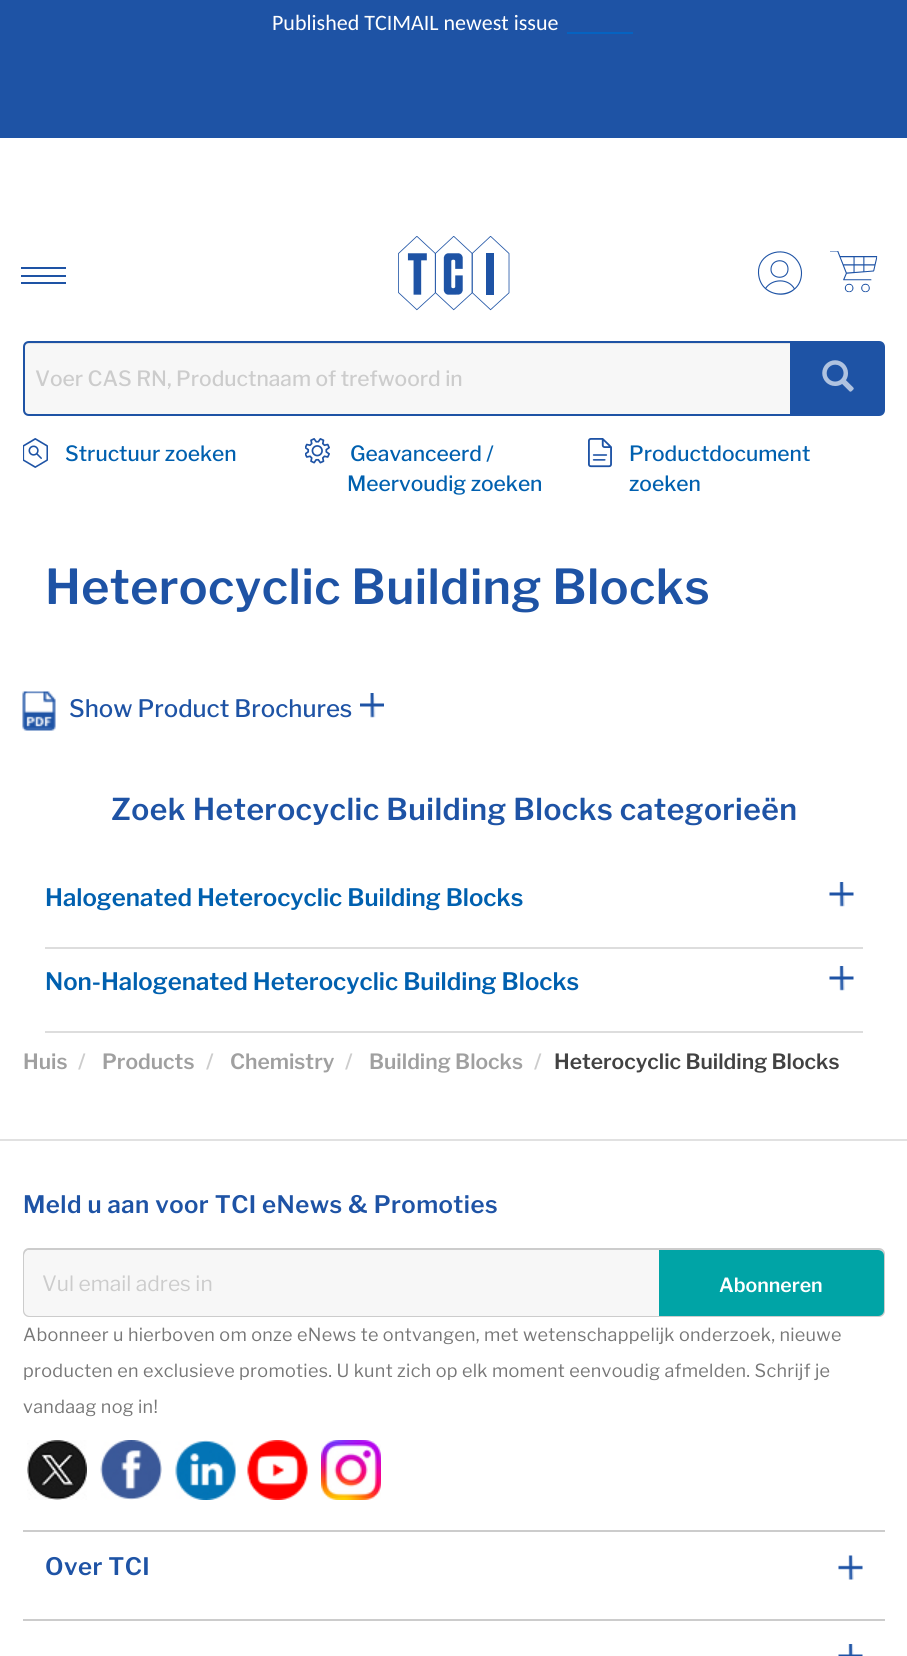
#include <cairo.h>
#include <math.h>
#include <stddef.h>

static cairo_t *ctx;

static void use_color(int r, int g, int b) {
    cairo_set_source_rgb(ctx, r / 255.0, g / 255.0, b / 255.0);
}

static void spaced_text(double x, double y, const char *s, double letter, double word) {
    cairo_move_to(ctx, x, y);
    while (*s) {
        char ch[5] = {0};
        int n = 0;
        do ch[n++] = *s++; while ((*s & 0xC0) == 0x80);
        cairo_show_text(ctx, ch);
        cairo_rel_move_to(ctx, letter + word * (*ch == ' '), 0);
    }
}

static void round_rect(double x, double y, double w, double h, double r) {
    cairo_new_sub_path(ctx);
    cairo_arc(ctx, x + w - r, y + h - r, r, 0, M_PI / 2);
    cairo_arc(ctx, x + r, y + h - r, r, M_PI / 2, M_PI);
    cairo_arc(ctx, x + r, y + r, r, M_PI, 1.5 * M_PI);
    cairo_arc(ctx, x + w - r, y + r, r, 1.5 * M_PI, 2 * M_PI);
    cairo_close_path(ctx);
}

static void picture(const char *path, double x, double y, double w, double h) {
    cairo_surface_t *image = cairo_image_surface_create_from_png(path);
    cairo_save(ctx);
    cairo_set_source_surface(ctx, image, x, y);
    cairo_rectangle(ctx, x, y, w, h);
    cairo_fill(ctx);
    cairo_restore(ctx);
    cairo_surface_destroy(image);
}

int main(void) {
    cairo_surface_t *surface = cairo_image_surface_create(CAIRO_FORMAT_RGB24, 907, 1656);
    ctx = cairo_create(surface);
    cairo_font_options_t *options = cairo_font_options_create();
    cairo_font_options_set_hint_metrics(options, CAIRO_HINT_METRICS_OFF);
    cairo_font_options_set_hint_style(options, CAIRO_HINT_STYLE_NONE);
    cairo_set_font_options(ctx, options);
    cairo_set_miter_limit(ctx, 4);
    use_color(255, 255, 255);
    cairo_paint(ctx);
    use_color(30, 83, 165);
    cairo_rectangle(ctx, 0, 0, 907, 138);
    cairo_fill(ctx);
    cairo_select_font_face(ctx, "Carlito", CAIRO_FONT_SLANT_NORMAL, CAIRO_FONT_WEIGHT_NORMAL);
    cairo_set_font_size(ctx, 22);
    use_color(255, 255, 255);
    cairo_move_to(ctx, 272, 30);
    cairo_show_text(ctx, "Published TCIMAIL newest issue");
    use_color(5, 99, 193);
    cairo_rectangle(ctx, 567, 32, 66, 2);
    cairo_fill(ctx);
    use_color(30, 83, 165);
    cairo_rectangle(ctx, 21, 267, 45, 2);
    cairo_fill(ctx);
    cairo_rectangle(ctx, 21, 275, 45, 2);
    cairo_fill(ctx);
    cairo_rectangle(ctx, 21, 282, 45, 2);
    cairo_fill(ctx);
    picture("img1.png", 398, 236, 112, 75);
    cairo_new_path(ctx);
    cairo_move_to(ctx, 794.5, 289);
    cairo_curve_to(ctx, 788.5, 278, 772, 278.5, 765.5, 288.5);
    cairo_curve_to(ctx, 773.5, 295.5, 786.5, 296.5, 794.5, 289);
    cairo_close_path(ctx);
    cairo_move_to(ctx, 788, 269);
    cairo_curve_to(ctx, 788, 258, 771.5, 258, 771, 269);
    cairo_curve_to(ctx, 770.5, 279.5, 788, 280.5, 788, 269);
    cairo_close_path(ctx);
    cairo_move_to(ctx, 801.5, 273);
    cairo_curve_to(ctx, 801.5, 300.5, 760, 301.5, 758.5, 273);
    cairo_curve_to(ctx, 757.5, 254, 782, 245, 795, 258);
    cairo_curve_to(ctx, 799, 262, 801.5, 267.5, 801.5, 273);
    cairo_close_path(ctx);
    cairo_set_line_width(ctx, 1.1);
    cairo_stroke(ctx);
    picture("img2.png", 830, 251, 48, 42);
    use_color(247, 247, 247);
    cairo_new_path(ctx);
    cairo_move_to(ctx, 29, 341);
    cairo_line_to(ctx, 792, 341);
    cairo_line_to(ctx, 792, 416);
    cairo_line_to(ctx, 29, 416);
    cairo_curve_to(ctx, 25.5, 416, 23, 413.5, 23, 410);
    cairo_line_to(ctx, 23, 347);
    cairo_curve_to(ctx, 23, 343.5, 25.5, 341, 29, 341);
    cairo_close_path(ctx);
    cairo_fill(ctx);
    use_color(228, 228, 228);
    cairo_new_path(ctx);
    cairo_move_to(ctx, 28, 344);
    cairo_line_to(ctx, 790, 344);
    cairo_line_to(ctx, 790, 414);
    cairo_line_to(ctx, 791, 414);
    cairo_line_to(ctx, 791, 342);
    cairo_line_to(ctx, 29, 342);
    cairo_curve_to(ctx, 26, 342, 24, 344, 24, 347);
    cairo_line_to(ctx, 24, 348);
    cairo_curve_to(ctx, 24, 346, 26, 344, 28, 344);
    cairo_close_path(ctx);
    cairo_fill(ctx);
    cairo_new_path(ctx);
    cairo_move_to(ctx, 29, 342);
    cairo_line_to(ctx, 791, 342);
    cairo_line_to(ctx, 791, 415);
    cairo_line_to(ctx, 29, 415);
    cairo_curve_to(ctx, 26, 415, 24, 413, 24, 410);
    cairo_line_to(ctx, 24, 347);
    cairo_curve_to(ctx, 24, 344, 26, 342, 29, 342);
    cairo_close_path(ctx);
    use_color(30, 83, 165);
    cairo_set_line_width(ctx, 2);
    cairo_stroke(ctx);
    cairo_select_font_face(ctx, "Libre Franklin Medium", CAIRO_FONT_SLANT_NORMAL, CAIRO_FONT_WEIGHT_NORMAL);
    cairo_set_font_size(ctx, 21);
    use_color(204, 204, 204);
    cairo_move_to(ctx, 35, 386);
    cairo_show_text(ctx, "Voer CAS RN, Productnaam of trefwoord in");
    use_color(30, 83, 165);
    cairo_new_path(ctx);
    cairo_move_to(ctx, 792, 341);
    cairo_line_to(ctx, 879, 341);
    cairo_curve_to(ctx, 882.5, 341, 885, 343.5, 885, 347);
    cairo_line_to(ctx, 885, 410);
    cairo_curve_to(ctx, 885, 413.5, 882.5, 416, 879, 416);
    cairo_line_to(ctx, 792, 416);
    cairo_close_path(ctx);
    cairo_fill(ctx);
    picture("img3.png", 822, 360, 32, 32);
    picture("img4.png", 23, 438, 25, 30);
    use_color(0, 96, 175);
    cairo_move_to(ctx, 65, 461);
    cairo_show_text(ctx, "Structuur zoeken");
    picture("img5.png", 305, 438, 25, 26);
    cairo_move_to(ctx, 350, 461);
    cairo_show_text(ctx, "Geavanceerd /");
    cairo_move_to(ctx, 347, 491);
    cairo_show_text(ctx, "Meervoudig zoeken");
    picture("img6.png", 588, 438, 24, 30);
    cairo_move_to(ctx, 629, 461);
    cairo_show_text(ctx, "Productdocument");
    cairo_move_to(ctx, 629, 491);
    cairo_show_text(ctx, "zoeken");
    cairo_select_font_face(ctx, "Libre Franklin SemiBold", CAIRO_FONT_SLANT_NORMAL, CAIRO_FONT_WEIGHT_NORMAL);
    cairo_set_font_size(ctx, 48);
    use_color(30, 83, 165);
    spaced_text(45, 604, "Heterocyclic Building Blocks", 0.45, 0);
    picture("img7.png", 22, 691, 34, 40);
    cairo_select_font_face(ctx, "Libre Franklin Medium", CAIRO_FONT_SLANT_NORMAL, CAIRO_FONT_WEIGHT_NORMAL);
    cairo_set_font_size(ctx, 24);
    cairo_move_to(ctx, 69, 717);
    cairo_show_text(ctx, "Show Product Brochures");
    picture("img8.png", 360, 693, 24, 25);
    cairo_select_font_face(ctx, "Libre Franklin SemiBold", CAIRO_FONT_SLANT_NORMAL, CAIRO_FONT_WEIGHT_NORMAL);
    cairo_set_font_size(ctx, 30);
    spaced_text(111, 820, "Zoek Heterocyclic Building Blocks categorieën", 0.45, 0);
    use_color(221, 221, 221);
    cairo_rectangle(ctx, 45, 947, 818, 2);
    cairo_fill(ctx);
    cairo_set_font_size(ctx, 24);
    use_color(0, 96, 175);
    cairo_move_to(ctx, 45, 906);
    cairo_show_text(ctx, "Halogenated Heterocyclic Building Blocks");
    picture("img9.png", 829, 882, 25, 25);
    use_color(221, 221, 221);
    cairo_rectangle(ctx, 45, 1031, 818, 2);
    cairo_fill(ctx);
    use_color(0, 96, 175);
    cairo_move_to(ctx, 45, 990);
    cairo_show_text(ctx, "Non-Halogenated Heterocyclic Building Blocks");
    picture("img9.png", 829, 966, 25, 25);
    cairo_set_font_size(ctx, 21);
    use_color(160, 160, 160);
    cairo_move_to(ctx, 23, 1069);
    cairo_show_text(ctx, "Huis");
    use_color(204, 204, 204);
    cairo_move_to(ctx, 78, 1069);
    cairo_show_text(ctx, "/");
    use_color(160, 160, 160);
    cairo_move_to(ctx, 102, 1069);
    cairo_show_text(ctx, "Products");
    use_color(204, 204, 204);
    cairo_move_to(ctx, 206, 1069);
    cairo_show_text(ctx, "/");
    use_color(160, 160, 160);
    cairo_move_to(ctx, 230, 1069);
    cairo_show_text(ctx, "Chemistry");
    use_color(204, 204, 204);
    cairo_move_to(ctx, 345, 1069);
    cairo_show_text(ctx, "/");
    use_color(160, 160, 160);
    cairo_move_to(ctx, 369, 1069);
    cairo_show_text(ctx, "Building Blocks");
    use_color(204, 204, 204);
    cairo_move_to(ctx, 534, 1069);
    cairo_show_text(ctx, "/");
    use_color(66, 66, 66);
    cairo_move_to(ctx, 554, 1069);
    cairo_show_text(ctx, "Heterocyclic Building Blocks");
    use_color(225, 225, 225);
    cairo_rectangle(ctx, 0, 1139, 907, 2);
    cairo_fill(ctx);
    cairo_set_font_size(ctx, 24);
    use_color(30, 83, 165);
    spaced_text(23, 1213, "Meld u aan voor TCI eNews & Promoties", 0.45, 0);
    round_rect(24, 1249, 860, 67, 5);
    use_color(204, 204, 204);
    cairo_stroke(ctx);
    use_color(247, 247, 247);
    cairo_new_path(ctx);
    cairo_move_to(ctx, 30, 1250);
    cairo_line_to(ctx, 659, 1250);
    cairo_line_to(ctx, 659, 1316);
    cairo_line_to(ctx, 30, 1316);
    cairo_curve_to(ctx, 26.5, 1316, 24, 1313.5, 24, 1310);
    cairo_line_to(ctx, 24, 1256);
    cairo_curve_to(ctx, 24, 1252.5, 26.5, 1250, 30, 1250);
    cairo_close_path(ctx);
    cairo_fill(ctx);
    cairo_select_font_face(ctx, "Libre Franklin", CAIRO_FONT_SLANT_NORMAL, CAIRO_FONT_WEIGHT_NORMAL);
    cairo_set_font_size(ctx, 21);
    use_color(204, 204, 204);
    cairo_move_to(ctx, 42, 1291);
    cairo_show_text(ctx, "Vul email adres in");
    use_color(0, 164, 166);
    cairo_new_path(ctx);
    cairo_move_to(ctx, 659, 1250);
    cairo_line_to(ctx, 878, 1250);
    cairo_curve_to(ctx, 881.5, 1250, 884, 1252.5, 884, 1256);
    cairo_line_to(ctx, 884, 1310);
    cairo_curve_to(ctx, 884, 1313.5, 881.5, 1316, 878, 1316);
    cairo_line_to(ctx, 659, 1316);
    cairo_close_path(ctx);
    cairo_fill(ctx);
    cairo_select_font_face(ctx, "Libre Franklin SemiBold", CAIRO_FONT_SLANT_NORMAL, CAIRO_FONT_WEIGHT_NORMAL);
    cairo_set_font_size(ctx, 19.5);
    use_color(255, 255, 255);
    cairo_move_to(ctx, 719, 1292);
    cairo_show_text(ctx, "Abonneren");
    cairo_select_font_face(ctx, "Libre Franklin", CAIRO_FONT_SLANT_NORMAL, CAIRO_FONT_WEIGHT_NORMAL);
    cairo_set_font_size(ctx, 18);
    use_color(119, 119, 119);
    spaced_text(23, 1341, "Abonneer u hierboven om onze eNews te ontvangen, met wetenschappelijk onderzoek, nieuwe", 0.3, 0);
    spaced_text(23, 1377, "producten en exclusieve promoties. U kunt zich op elk moment eenvoudig afmelden. Schrijf je", 0.3, 0);
    spaced_text(23, 1413, "vandaag nog in!", 0.3, 0);
    picture("img10.png", 27, 1440, 60, 60);
    picture("img11.png", 100, 1440, 62, 60);
    picture("img12.png", 175, 1440, 61, 60);
    picture("img13.png", 247, 1440, 61, 60);
    picture("img14.png", 321, 1440, 60, 60);
    use_color(204, 204, 204);
    cairo_rectangle(ctx, 23, 1530, 862, 2);
    cairo_fill(ctx);
    cairo_rectangle(ctx, 23, 1619, 862, 2);
    cairo_fill(ctx);
    cairo_select_font_face(ctx, "Libre Franklin SemiBold", CAIRO_FONT_SLANT_NORMAL, CAIRO_FONT_WEIGHT_NORMAL);
    cairo_set_font_size(ctx, 24);
    use_color(30, 83, 165);
    spaced_text(45, 1575, "Over TCI", 0.45, 0);
    picture("img15.png", 838, 1555, 25, 25);
    picture("img16.png", 838, 1644, 25, 12);
    cairo_surface_write_to_png(surface, "result.png");
    cairo_font_options_destroy(options);
    cairo_destroy(ctx);
    cairo_surface_destroy(surface);
    return 0;
}
